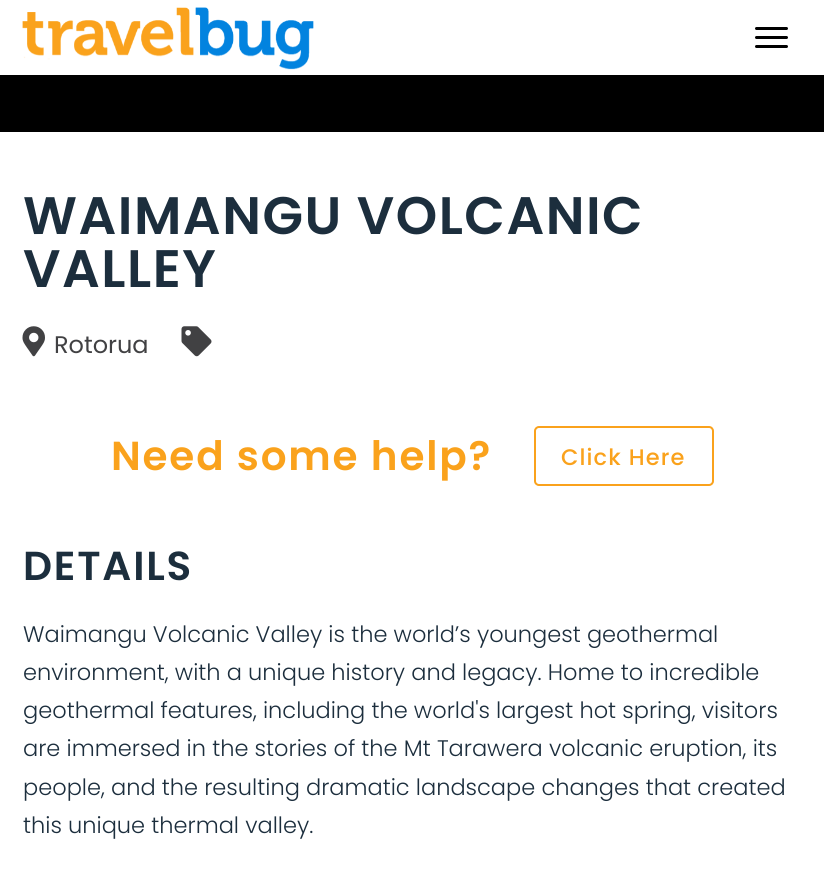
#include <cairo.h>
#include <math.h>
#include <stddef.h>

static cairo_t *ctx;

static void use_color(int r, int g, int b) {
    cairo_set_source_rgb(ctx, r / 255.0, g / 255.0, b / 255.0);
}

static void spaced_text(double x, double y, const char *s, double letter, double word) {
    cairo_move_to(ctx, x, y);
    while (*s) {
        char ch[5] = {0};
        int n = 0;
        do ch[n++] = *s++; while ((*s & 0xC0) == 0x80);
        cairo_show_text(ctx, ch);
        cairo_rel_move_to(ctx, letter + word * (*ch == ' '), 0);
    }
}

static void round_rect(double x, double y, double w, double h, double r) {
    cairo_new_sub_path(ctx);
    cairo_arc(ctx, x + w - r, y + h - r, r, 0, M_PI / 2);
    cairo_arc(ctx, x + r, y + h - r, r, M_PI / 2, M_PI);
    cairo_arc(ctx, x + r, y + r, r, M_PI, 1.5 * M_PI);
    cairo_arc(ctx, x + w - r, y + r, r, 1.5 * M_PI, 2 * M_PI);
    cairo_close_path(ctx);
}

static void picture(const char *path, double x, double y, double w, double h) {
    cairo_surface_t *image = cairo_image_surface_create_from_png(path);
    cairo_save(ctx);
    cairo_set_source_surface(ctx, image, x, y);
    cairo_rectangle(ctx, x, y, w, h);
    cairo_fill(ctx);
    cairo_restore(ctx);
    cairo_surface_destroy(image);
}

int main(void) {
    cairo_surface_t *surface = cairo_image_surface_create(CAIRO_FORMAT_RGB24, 824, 882);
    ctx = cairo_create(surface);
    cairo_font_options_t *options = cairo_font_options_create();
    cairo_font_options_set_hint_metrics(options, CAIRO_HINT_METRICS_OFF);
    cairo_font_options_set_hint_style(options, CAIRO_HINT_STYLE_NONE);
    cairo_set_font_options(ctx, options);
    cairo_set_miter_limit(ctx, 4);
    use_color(255, 255, 255);
    cairo_paint(ctx);
    picture("img1.png", 22, 7, 292, 63);
    use_color(0, 0, 0);
    round_rect(755, 27, 33, 3, 1.5);
    cairo_fill(ctx);
    round_rect(755, 36, 33, 3, 1.5);
    cairo_fill(ctx);
    round_rect(755, 45, 33, 3, 1.5);
    cairo_fill(ctx);
    cairo_rectangle(ctx, 0, 75, 824, 57);
    cairo_fill(ctx);
    cairo_select_font_face(ctx, "Poppins SemiBold", CAIRO_FONT_SLANT_NORMAL, CAIRO_FONT_WEIGHT_NORMAL);
    cairo_set_font_size(ctx, 52.75);
    use_color(28, 46, 61);
    spaced_text(23, 234, "WAIMANGU VOLCANIC", 1.5, 0);
    spaced_text(23, 287, "VALLEY", 1.5, 0);
    picture("img2.png", 22, 326, 23, 31);
    cairo_select_font_face(ctx, "Poppins", CAIRO_FONT_SLANT_NORMAL, CAIRO_FONT_WEIGHT_NORMAL);
    cairo_set_font_size(ctx, 24);
    use_color(65, 65, 67);
    cairo_move_to(ctx, 54, 353);
    cairo_show_text(ctx, "Rotorua");
    picture("img3.png", 181, 326, 31, 31);
    cairo_select_font_face(ctx, "Poppins SemiBold", CAIRO_FONT_SLANT_NORMAL, CAIRO_FONT_WEIGHT_NORMAL);
    cairo_set_font_size(ctx, 40.5);
    use_color(250, 162, 28);
    spaced_text(111, 470, "Need some help?", 1.8, 0);
    round_rect(535, 427, 178, 58, 4);
    cairo_stroke(ctx);
    cairo_select_font_face(ctx, "Poppins Medium", CAIRO_FONT_SLANT_NORMAL, CAIRO_FONT_WEIGHT_NORMAL);
    cairo_set_font_size(ctx, 22.5);
    spaced_text(561, 465, "Click Here", 1.1, 0);
    cairo_select_font_face(ctx, "Poppins SemiBold", CAIRO_FONT_SLANT_NORMAL, CAIRO_FONT_WEIGHT_NORMAL);
    cairo_set_font_size(ctx, 40.5);
    use_color(28, 46, 61);
    spaced_text(23, 580, "DETAILS", 1.8, 0);
    cairo_select_font_face(ctx, "Poppins Light", CAIRO_FONT_SLANT_NORMAL, CAIRO_FONT_WEIGHT_NORMAL);
    cairo_set_font_size(ctx, 22.5);
    cairo_move_to(ctx, 23, 642);
    cairo_show_text(ctx, "Waimangu Volcanic Valley is the world’s youngest geothermal");
    cairo_move_to(ctx, 23, 680);
    cairo_show_text(ctx, "environment, with a unique history and legacy. Home to incredible");
    cairo_move_to(ctx, 23, 718);
    cairo_show_text(ctx, "geothermal features, including the world's largest hot spring, visitors");
    cairo_move_to(ctx, 23, 756);
    cairo_show_text(ctx, "are immersed in the stories of the Mt Tarawera volcanic eruption, its");
    cairo_move_to(ctx, 23, 795);
    cairo_show_text(ctx, "people, and the resulting dramatic landscape changes that created");
    cairo_move_to(ctx, 23, 833);
    cairo_show_text(ctx, "this unique thermal valley.");
    cairo_surface_write_to_png(surface, "result.png");
    cairo_font_options_destroy(options);
    cairo_destroy(ctx);
    cairo_surface_destroy(surface);
    return 0;
}
